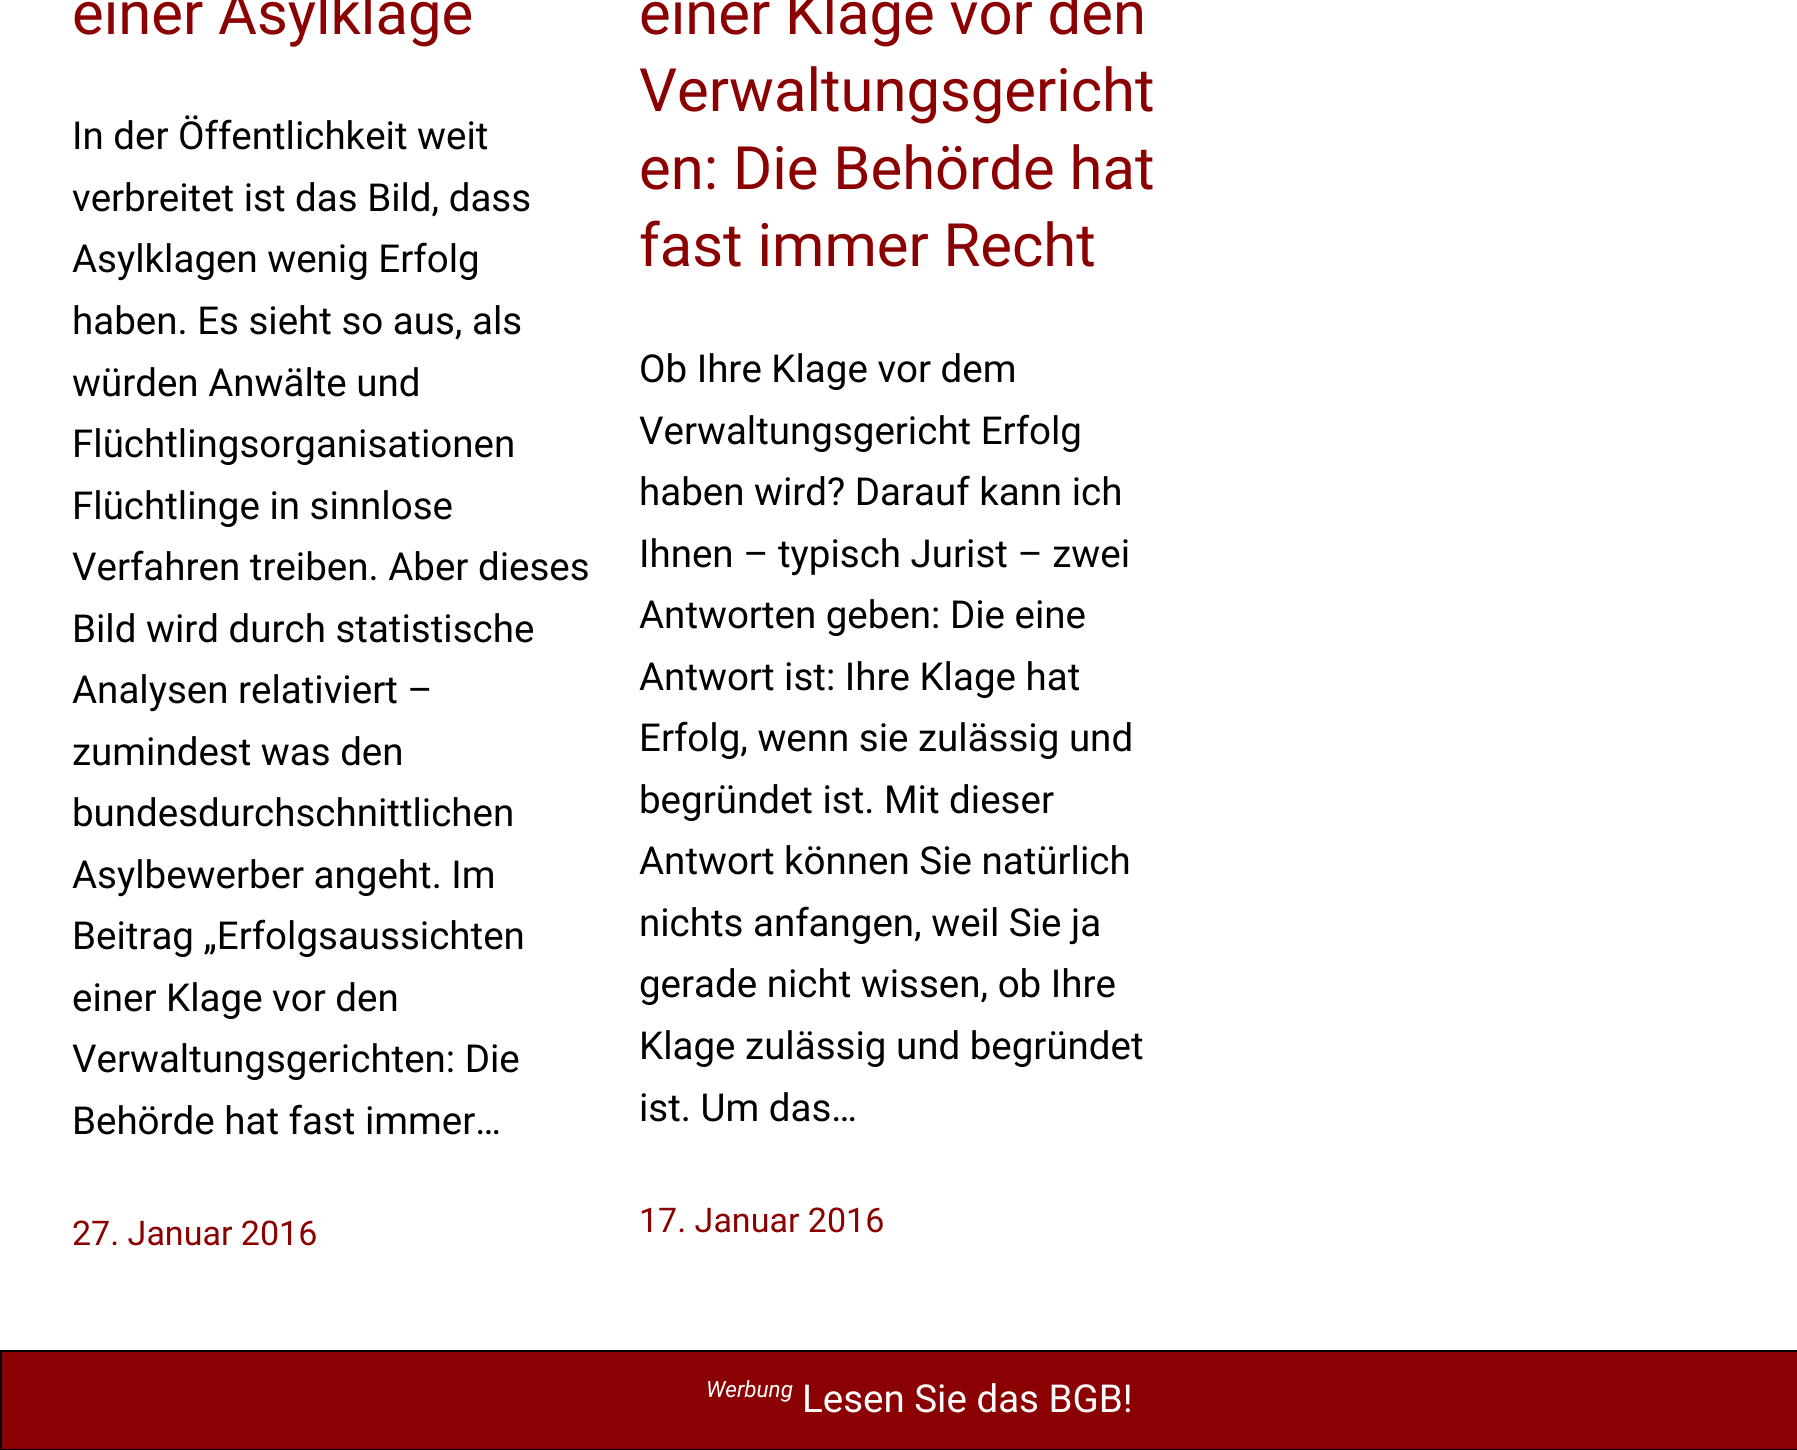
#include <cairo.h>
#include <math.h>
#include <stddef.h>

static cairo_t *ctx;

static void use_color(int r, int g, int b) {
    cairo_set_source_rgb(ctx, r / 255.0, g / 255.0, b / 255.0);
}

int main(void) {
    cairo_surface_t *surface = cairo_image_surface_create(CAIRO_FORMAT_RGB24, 1797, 1450);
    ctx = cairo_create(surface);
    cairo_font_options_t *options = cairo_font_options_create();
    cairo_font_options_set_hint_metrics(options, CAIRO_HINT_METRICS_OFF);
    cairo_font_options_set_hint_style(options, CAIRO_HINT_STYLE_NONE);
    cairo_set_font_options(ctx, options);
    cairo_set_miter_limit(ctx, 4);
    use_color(255, 255, 255);
    cairo_paint(ctx);
    cairo_select_font_face(ctx, "Roboto", CAIRO_FONT_SLANT_NORMAL, CAIRO_FONT_WEIGHT_NORMAL);
    cairo_set_font_size(ctx, 59.75);
    use_color(139, 0, 0);
    cairo_move_to(ctx, 72, 34);
    cairo_show_text(ctx, "einer Asylklage");
    cairo_set_font_size(ctx, 38.5);
    use_color(0, 0, 0);
    cairo_move_to(ctx, 72, 149);
    cairo_show_text(ctx, "In der Öffentlichkeit weit");
    cairo_move_to(ctx, 72, 211);
    cairo_show_text(ctx, "verbreitet ist das Bild, dass");
    cairo_move_to(ctx, 72, 272);
    cairo_show_text(ctx, "Asylklagen wenig Erfolg");
    cairo_move_to(ctx, 72, 334);
    cairo_show_text(ctx, "haben. Es sieht so aus, als");
    cairo_move_to(ctx, 72, 396);
    cairo_show_text(ctx, "würden Anwälte und");
    cairo_move_to(ctx, 72, 457);
    cairo_show_text(ctx, "Flüchtlingsorganisationen");
    cairo_move_to(ctx, 72, 519);
    cairo_show_text(ctx, "Flüchtlinge in sinnlose");
    cairo_move_to(ctx, 72, 580);
    cairo_show_text(ctx, "Verfahren treiben. Aber dieses");
    cairo_move_to(ctx, 72, 642);
    cairo_show_text(ctx, "Bild wird durch statistische");
    cairo_move_to(ctx, 72, 703);
    cairo_show_text(ctx, "Analysen relativiert –");
    cairo_move_to(ctx, 72, 765);
    cairo_show_text(ctx, "zumindest was den");
    cairo_move_to(ctx, 72, 826);
    cairo_show_text(ctx, "bundesdurchschnittlichen");
    cairo_move_to(ctx, 72, 888);
    cairo_show_text(ctx, "Asylbewerber angeht. Im");
    cairo_move_to(ctx, 72, 949);
    cairo_show_text(ctx, "Beitrag „Erfolgsaussichten");
    cairo_move_to(ctx, 72, 1011);
    cairo_show_text(ctx, "einer Klage vor den");
    cairo_move_to(ctx, 72, 1072);
    cairo_show_text(ctx, "Verwaltungsgerichten: Die");
    cairo_move_to(ctx, 72, 1134);
    cairo_show_text(ctx, "Behörde hat fast immer…");
    cairo_set_font_size(ctx, 34);
    use_color(139, 0, 0);
    cairo_move_to(ctx, 72, 1245);
    cairo_show_text(ctx, "27. Januar 2016");
    cairo_set_font_size(ctx, 59.75);
    cairo_move_to(ctx, 639, 34);
    cairo_show_text(ctx, "einer Klage vor den");
    cairo_move_to(ctx, 639, 111);
    cairo_show_text(ctx, "Verwaltungsgericht");
    cairo_move_to(ctx, 639, 189);
    cairo_show_text(ctx, "en: Die Behörde hat");
    cairo_move_to(ctx, 639, 266);
    cairo_show_text(ctx, "fast immer Recht");
    cairo_set_font_size(ctx, 38.5);
    use_color(0, 0, 0);
    cairo_move_to(ctx, 639, 382);
    cairo_show_text(ctx, "Ob Ihre Klage vor dem");
    cairo_move_to(ctx, 639, 444);
    cairo_show_text(ctx, "Verwaltungsgericht Erfolg");
    cairo_move_to(ctx, 639, 505);
    cairo_show_text(ctx, "haben wird? Darauf kann ich");
    cairo_move_to(ctx, 639, 567);
    cairo_show_text(ctx, "Ihnen – typisch Jurist – zwei");
    cairo_move_to(ctx, 639, 628);
    cairo_show_text(ctx, "Antworten geben: Die eine");
    cairo_move_to(ctx, 639, 690);
    cairo_show_text(ctx, "Antwort ist: Ihre Klage hat");
    cairo_move_to(ctx, 639, 751);
    cairo_show_text(ctx, "Erfolg, wenn sie zulässig und");
    cairo_move_to(ctx, 639, 813);
    cairo_show_text(ctx, "begründet ist. Mit dieser");
    cairo_move_to(ctx, 639, 874);
    cairo_show_text(ctx, "Antwort können Sie natürlich");
    cairo_move_to(ctx, 639, 936);
    cairo_show_text(ctx, "nichts anfangen, weil Sie ja");
    cairo_move_to(ctx, 639, 997);
    cairo_show_text(ctx, "gerade nicht wissen, ob Ihre");
    cairo_move_to(ctx, 639, 1059);
    cairo_show_text(ctx, "Klage zulässig und begründet");
    cairo_move_to(ctx, 639, 1121);
    cairo_show_text(ctx, "ist. Um das…");
    cairo_set_font_size(ctx, 34);
    use_color(139, 0, 0);
    cairo_move_to(ctx, 639, 1232);
    cairo_show_text(ctx, "17. Januar 2016");
    cairo_rectangle(ctx, 1, 1351, 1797, 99);
    cairo_fill_preserve(ctx);
    use_color(0, 0, 0);
    cairo_stroke(ctx);
    cairo_select_font_face(ctx, "Roboto", CAIRO_FONT_SLANT_ITALIC, CAIRO_FONT_WEIGHT_NORMAL);
    cairo_set_font_size(ctx, 22.5);
    use_color(255, 255, 255);
    cairo_move_to(ctx, 706, 1397);
    cairo_show_text(ctx, "Werbung");
    cairo_select_font_face(ctx, "Roboto", CAIRO_FONT_SLANT_NORMAL, CAIRO_FONT_WEIGHT_NORMAL);
    cairo_set_font_size(ctx, 38.5);
    cairo_move_to(ctx, 802, 1412);
    cairo_show_text(ctx, "Lesen Sie das BGB!");
    cairo_surface_write_to_png(surface, "result.png");
    cairo_font_options_destroy(options);
    cairo_destroy(ctx);
    cairo_surface_destroy(surface);
    return 0;
}
